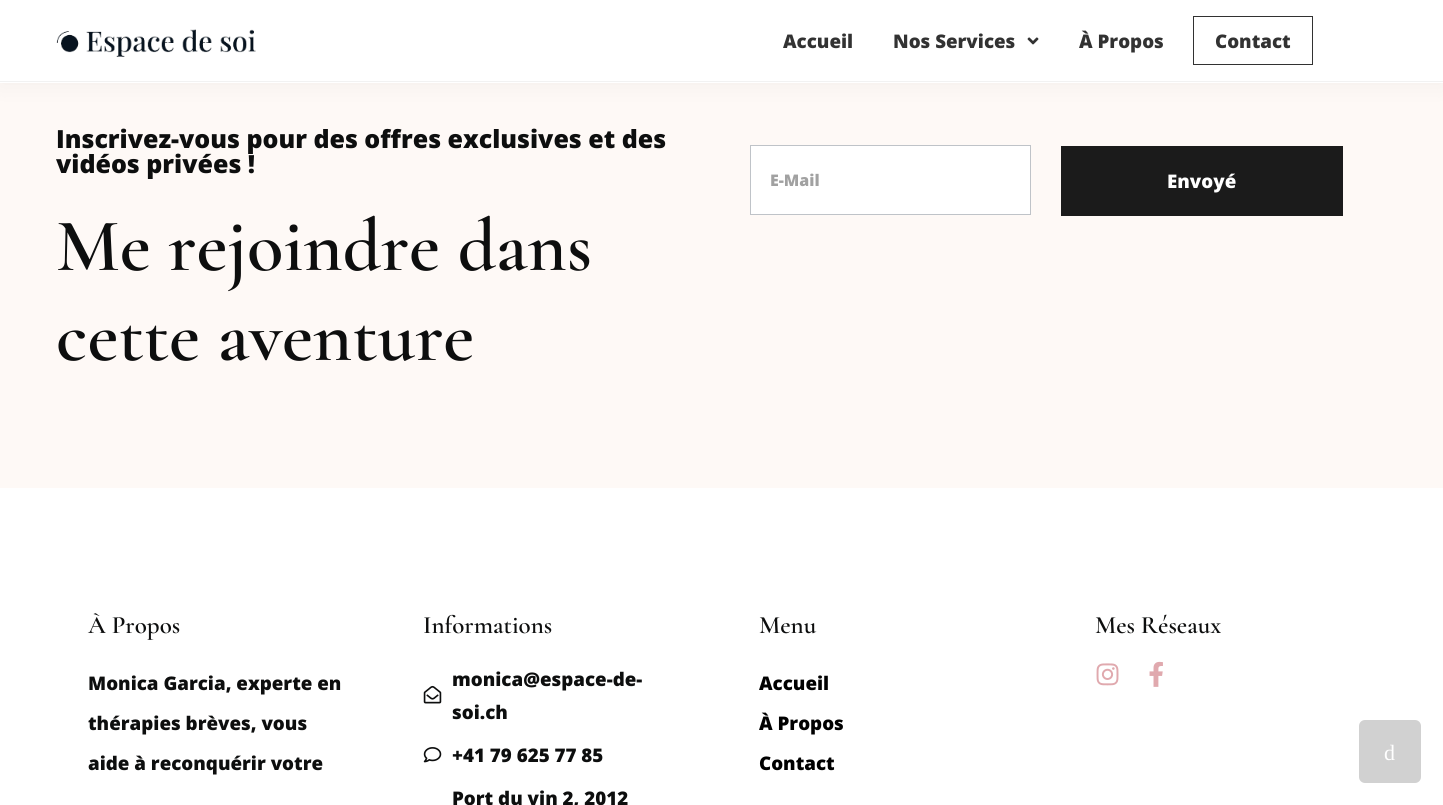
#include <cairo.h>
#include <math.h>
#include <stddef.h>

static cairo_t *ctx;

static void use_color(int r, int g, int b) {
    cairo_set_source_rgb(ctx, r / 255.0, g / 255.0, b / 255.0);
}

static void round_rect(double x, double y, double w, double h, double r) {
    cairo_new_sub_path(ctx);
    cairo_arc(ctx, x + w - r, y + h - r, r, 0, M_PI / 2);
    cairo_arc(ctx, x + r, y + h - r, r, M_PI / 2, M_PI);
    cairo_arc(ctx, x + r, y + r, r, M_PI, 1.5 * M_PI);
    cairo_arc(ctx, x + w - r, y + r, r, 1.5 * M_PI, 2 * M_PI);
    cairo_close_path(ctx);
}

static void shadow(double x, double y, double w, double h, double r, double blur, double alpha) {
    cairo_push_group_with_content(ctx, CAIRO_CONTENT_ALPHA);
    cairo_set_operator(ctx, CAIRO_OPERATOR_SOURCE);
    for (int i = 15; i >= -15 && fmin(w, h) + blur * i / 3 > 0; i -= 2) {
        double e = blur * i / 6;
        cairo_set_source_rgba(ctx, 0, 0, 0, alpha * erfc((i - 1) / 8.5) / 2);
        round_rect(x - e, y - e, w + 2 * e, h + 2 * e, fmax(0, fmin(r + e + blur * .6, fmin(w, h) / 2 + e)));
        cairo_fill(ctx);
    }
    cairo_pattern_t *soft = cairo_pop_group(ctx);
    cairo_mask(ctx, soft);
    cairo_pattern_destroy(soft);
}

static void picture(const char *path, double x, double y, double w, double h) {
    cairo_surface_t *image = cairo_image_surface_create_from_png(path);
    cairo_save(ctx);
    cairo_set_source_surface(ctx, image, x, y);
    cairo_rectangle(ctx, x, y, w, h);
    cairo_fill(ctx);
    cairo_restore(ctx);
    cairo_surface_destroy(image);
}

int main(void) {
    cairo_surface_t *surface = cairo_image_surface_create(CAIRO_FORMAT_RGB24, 1443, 805);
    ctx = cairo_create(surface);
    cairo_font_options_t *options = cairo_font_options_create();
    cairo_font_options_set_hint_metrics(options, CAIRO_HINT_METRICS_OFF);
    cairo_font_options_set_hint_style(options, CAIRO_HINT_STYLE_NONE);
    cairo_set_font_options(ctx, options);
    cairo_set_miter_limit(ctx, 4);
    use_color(255, 255, 255);
    cairo_paint(ctx);
    use_color(254, 249, 246);
    cairo_rectangle(ctx, 0, 83, 1443, 405);
    cairo_fill(ctx);
    use_color(0, 0, 0);
    shadow(0, 0, 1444, 83, 0, 12.5, 0.05);
    use_color(255, 255, 255);
    cairo_rectangle(ctx, 0, 0, 1443, 83);
    cairo_fill(ctx);
    use_color(242, 242, 242);
    cairo_rectangle(ctx, 0, 81, 1443, 1);
    cairo_fill(ctx);
    picture("img1.png", 56, 29, 200, 28);
    cairo_select_font_face(ctx, "Open Sans ExtraBold", CAIRO_FONT_SLANT_NORMAL, CAIRO_FONT_WEIGHT_NORMAL);
    cairo_set_font_size(ctx, 18.75);
    use_color(50, 50, 50);
    cairo_move_to(ctx, 783, 48);
    cairo_show_text(ctx, "Accueil");
    cairo_move_to(ctx, 893, 48);
    cairo_show_text(ctx, "Nos Services");
    picture("img2.png", 1027, 37, 12, 8);
    cairo_move_to(ctx, 1079, 48);
    cairo_show_text(ctx, "À Propos");
    cairo_rectangle(ctx, 1193.5, 16.5, 119, 48);
    cairo_set_line_width(ctx, 1);
    cairo_stroke(ctx);
    cairo_move_to(ctx, 1215, 48);
    cairo_show_text(ctx, "Contact");
    cairo_set_font_size(ctx, 25);
    use_color(13, 14, 14);
    cairo_move_to(ctx, 56, 148);
    cairo_show_text(ctx, "Inscrivez-vous pour des offres exclusives et des");
    cairo_move_to(ctx, 56, 173);
    cairo_show_text(ctx, "vidéos privées !");
    cairo_select_font_face(ctx, "Cormorant Garamond SemiBold", CAIRO_FONT_SLANT_NORMAL, CAIRO_FONT_WEIGHT_NORMAL);
    cairo_set_font_size(ctx, 75);
    cairo_move_to(ctx, 56, 270);
    cairo_show_text(ctx, "Me rejoindre dans");
    cairo_move_to(ctx, 56, 360);
    cairo_show_text(ctx, "cette aventure");
    use_color(255, 255, 255);
    cairo_rectangle(ctx, 750.5, 145.5, 280, 69);
    cairo_fill_preserve(ctx);
    use_color(191, 195, 200);
    cairo_stroke(ctx);
    cairo_select_font_face(ctx, "Open Sans ExtraBold", CAIRO_FONT_SLANT_NORMAL, CAIRO_FONT_WEIGHT_NORMAL);
    cairo_set_font_size(ctx, 16);
    use_color(161, 161, 161);
    cairo_move_to(ctx, 770, 186);
    cairo_show_text(ctx, "E-Mail");
    use_color(27, 27, 27);
    cairo_rectangle(ctx, 1061, 146, 282, 70);
    cairo_fill(ctx);
    cairo_set_font_size(ctx, 18.75);
    use_color(255, 255, 255);
    cairo_move_to(ctx, 1167, 188);
    cairo_show_text(ctx, "Envoyé");
    cairo_select_font_face(ctx, "Cormorant Garamond SemiBold", CAIRO_FONT_SLANT_NORMAL, CAIRO_FONT_WEIGHT_NORMAL);
    cairo_set_font_size(ctx, 25);
    use_color(13, 14, 14);
    cairo_move_to(ctx, 88, 633);
    cairo_show_text(ctx, "À Propos");
    cairo_select_font_face(ctx, "Open Sans ExtraBold", CAIRO_FONT_SLANT_NORMAL, CAIRO_FONT_WEIGHT_NORMAL);
    cairo_set_font_size(ctx, 18.75);
    cairo_move_to(ctx, 88, 690);
    cairo_show_text(ctx, "Monica Garcia, experte en");
    cairo_move_to(ctx, 88, 730);
    cairo_show_text(ctx, "thérapies brèves, vous");
    cairo_move_to(ctx, 88, 770);
    cairo_show_text(ctx, "aide à reconquérir votre");
    cairo_select_font_face(ctx, "Cormorant Garamond SemiBold", CAIRO_FONT_SLANT_NORMAL, CAIRO_FONT_WEIGHT_NORMAL);
    cairo_set_font_size(ctx, 25);
    cairo_move_to(ctx, 423, 633);
    cairo_show_text(ctx, "Informations");
    picture("img3.png", 423, 685, 19, 19);
    cairo_select_font_face(ctx, "Open Sans ExtraBold", CAIRO_FONT_SLANT_NORMAL, CAIRO_FONT_WEIGHT_NORMAL);
    cairo_set_font_size(ctx, 18.75);
    cairo_move_to(ctx, 452, 686);
    cairo_show_text(ctx, "monica@espace-de-");
    cairo_move_to(ctx, 452, 719);
    cairo_show_text(ctx, "soi.ch");
    picture("img4.png", 423, 747, 19, 16);
    cairo_move_to(ctx, 452, 762);
    cairo_show_text(ctx, "+41 79 625 77 85");
    cairo_move_to(ctx, 452, 805);
    cairo_show_text(ctx, "Port du vin 2, 2012");
    cairo_select_font_face(ctx, "Cormorant Garamond SemiBold", CAIRO_FONT_SLANT_NORMAL, CAIRO_FONT_WEIGHT_NORMAL);
    cairo_set_font_size(ctx, 25);
    cairo_move_to(ctx, 759, 633);
    cairo_show_text(ctx, "Menu");
    cairo_select_font_face(ctx, "Open Sans ExtraBold", CAIRO_FONT_SLANT_NORMAL, CAIRO_FONT_WEIGHT_NORMAL);
    cairo_set_font_size(ctx, 18.75);
    use_color(0, 0, 0);
    cairo_move_to(ctx, 759, 690);
    cairo_show_text(ctx, "Accueil");
    cairo_move_to(ctx, 759, 730);
    cairo_show_text(ctx, "À Propos");
    cairo_move_to(ctx, 759, 770);
    cairo_show_text(ctx, "Contact");
    cairo_select_font_face(ctx, "Cormorant Garamond SemiBold", CAIRO_FONT_SLANT_NORMAL, CAIRO_FONT_WEIGHT_NORMAL);
    cairo_set_font_size(ctx, 25);
    use_color(13, 14, 14);
    cairo_move_to(ctx, 1095, 633);
    cairo_show_text(ctx, "Mes Réseaux");
    picture("img5.png", 1096, 663, 23, 23);
    picture("img6.png", 1149, 661, 14, 26);
    use_color(209, 209, 209);
    round_rect(1359, 720, 62, 63, 6);
    cairo_fill(ctx);
    cairo_select_font_face(ctx, "Liberation Serif", CAIRO_FONT_SLANT_NORMAL, CAIRO_FONT_WEIGHT_NORMAL);
    cairo_set_font_size(ctx, 22);
    use_color(255, 255, 255);
    cairo_move_to(ctx, 1384, 760);
    cairo_show_text(ctx, "d");
    cairo_surface_write_to_png(surface, "result.png");
    cairo_font_options_destroy(options);
    cairo_destroy(ctx);
    cairo_surface_destroy(surface);
    return 0;
}
